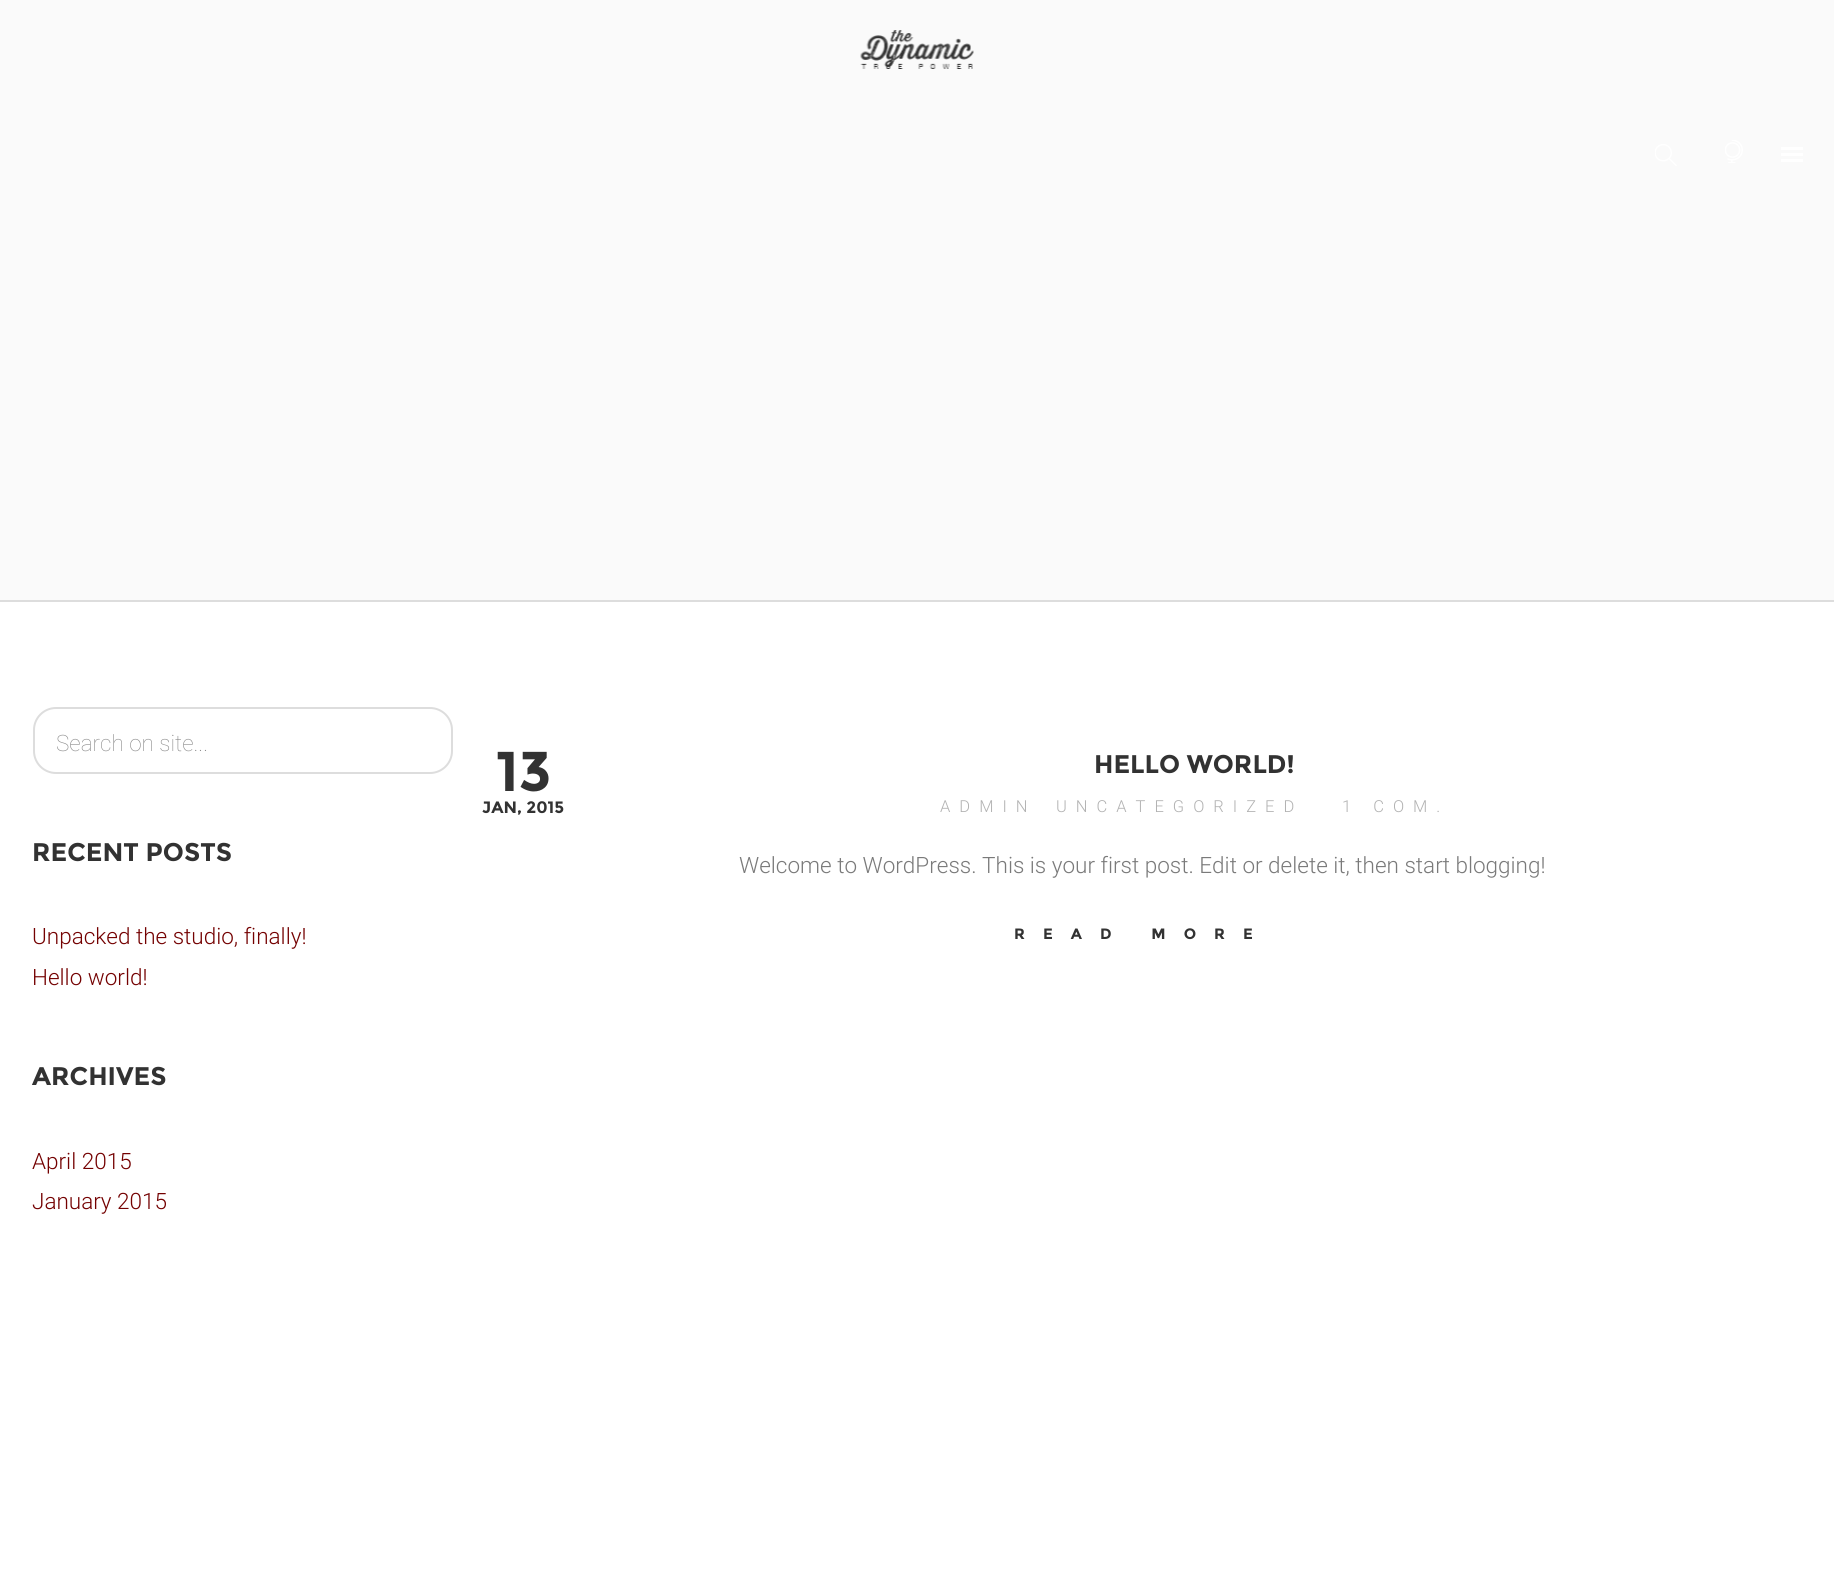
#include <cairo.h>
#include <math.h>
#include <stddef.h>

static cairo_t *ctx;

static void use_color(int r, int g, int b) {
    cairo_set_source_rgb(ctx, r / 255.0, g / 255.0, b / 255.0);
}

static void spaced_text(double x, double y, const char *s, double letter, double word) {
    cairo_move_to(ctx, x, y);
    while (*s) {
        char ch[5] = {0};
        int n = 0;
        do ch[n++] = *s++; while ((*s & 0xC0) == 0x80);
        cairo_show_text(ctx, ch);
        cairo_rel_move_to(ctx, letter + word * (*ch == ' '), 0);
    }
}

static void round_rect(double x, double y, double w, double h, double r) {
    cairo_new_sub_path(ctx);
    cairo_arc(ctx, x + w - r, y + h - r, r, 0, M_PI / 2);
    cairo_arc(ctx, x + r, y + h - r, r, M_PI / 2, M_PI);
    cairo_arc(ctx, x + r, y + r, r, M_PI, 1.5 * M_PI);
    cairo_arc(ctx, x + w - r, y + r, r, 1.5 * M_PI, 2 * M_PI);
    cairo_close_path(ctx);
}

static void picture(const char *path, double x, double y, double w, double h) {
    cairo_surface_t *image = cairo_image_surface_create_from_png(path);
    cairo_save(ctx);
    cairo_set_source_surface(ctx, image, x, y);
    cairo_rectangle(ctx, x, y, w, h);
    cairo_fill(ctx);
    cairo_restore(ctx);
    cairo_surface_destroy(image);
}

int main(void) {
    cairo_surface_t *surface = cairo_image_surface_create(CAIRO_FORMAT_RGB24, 1834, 1573);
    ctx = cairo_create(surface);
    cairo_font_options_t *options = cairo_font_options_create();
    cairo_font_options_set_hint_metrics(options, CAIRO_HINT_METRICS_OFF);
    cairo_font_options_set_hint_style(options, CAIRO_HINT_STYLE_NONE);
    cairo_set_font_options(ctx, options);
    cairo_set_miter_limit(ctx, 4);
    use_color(255, 255, 255);
    cairo_paint(ctx);
    use_color(250, 250, 250);
    cairo_rectangle(ctx, 0, 0, 1834, 600);
    cairo_fill(ctx);
    use_color(221, 221, 221);
    cairo_rectangle(ctx, 0, 600, 1834, 2);
    cairo_fill(ctx);
    picture("img1.png", 860, 30, 114, 39);
    picture("img2.png", 1655, 144, 22, 22);
    picture("img3.png", 1725, 140, 18, 23);
    use_color(255, 255, 255);
    cairo_rectangle(ctx, 1781, 147, 22, 3);
    cairo_fill(ctx);
    cairo_rectangle(ctx, 1781, 159, 22, 3);
    cairo_fill(ctx);
    cairo_rectangle(ctx, 1781, 153, 22, 3);
    cairo_fill(ctx);
    round_rect(34, 708, 418, 65, 22);
    use_color(221, 221, 221);
    cairo_stroke(ctx);
    cairo_select_font_face(ctx, "Roboto Thin", CAIRO_FONT_SLANT_NORMAL, CAIRO_FONT_WEIGHT_NORMAL);
    cairo_set_font_size(ctx, 22.5);
    use_color(136, 136, 136);
    cairo_move_to(ctx, 56, 751);
    cairo_show_text(ctx, "Search on site...");
    cairo_select_font_face(ctx, "Montserrat", CAIRO_FONT_SLANT_NORMAL, CAIRO_FONT_WEIGHT_BOLD);
    cairo_set_font_size(ctx, 25.5);
    use_color(50, 50, 50);
    cairo_move_to(ctx, 32, 861);
    cairo_show_text(ctx, "RECENT POSTS");
    cairo_select_font_face(ctx, "Roboto Light", CAIRO_FONT_SLANT_NORMAL, CAIRO_FONT_WEIGHT_NORMAL);
    cairo_set_font_size(ctx, 22.5);
    use_color(116, 1, 1);
    cairo_move_to(ctx, 32, 944);
    cairo_show_text(ctx, "Unpacked the studio, finally!");
    cairo_move_to(ctx, 32, 985);
    cairo_show_text(ctx, "Hello world!");
    cairo_select_font_face(ctx, "Montserrat", CAIRO_FONT_SLANT_NORMAL, CAIRO_FONT_WEIGHT_BOLD);
    cairo_set_font_size(ctx, 25.5);
    use_color(50, 50, 50);
    cairo_move_to(ctx, 32, 1085);
    cairo_show_text(ctx, "ARCHIVES");
    cairo_select_font_face(ctx, "Roboto Light", CAIRO_FONT_SLANT_NORMAL, CAIRO_FONT_WEIGHT_NORMAL);
    cairo_set_font_size(ctx, 22.5);
    use_color(116, 1, 1);
    cairo_move_to(ctx, 32, 1169);
    cairo_show_text(ctx, "April 2015");
    cairo_move_to(ctx, 32, 1209);
    cairo_show_text(ctx, "January 2015");
    cairo_select_font_face(ctx, "Montserrat", CAIRO_FONT_SLANT_NORMAL, CAIRO_FONT_WEIGHT_BOLD);
    cairo_set_font_size(ctx, 56);
    use_color(50, 50, 50);
    cairo_move_to(ctx, 496, 791);
    cairo_show_text(ctx, "13");
    cairo_set_font_size(ctx, 16.5);
    cairo_move_to(ctx, 482, 813);
    cairo_show_text(ctx, "JAN, 2015");
    cairo_set_font_size(ctx, 25.5);
    cairo_move_to(ctx, 1094, 773);
    cairo_show_text(ctx, "HELLO WORLD!");
    cairo_select_font_face(ctx, "Roboto Light", CAIRO_FONT_SLANT_NORMAL, CAIRO_FONT_WEIGHT_NORMAL);
    cairo_set_font_size(ctx, 16.5);
    use_color(178, 178, 178);
    spaced_text(940, 812, "ADMIN", 9, 0);
    spaced_text(1056, 812, "UNCATEGORIZED", 9, 0);
    spaced_text(1342, 812, "1 COM.", 9, 0);
    cairo_set_font_size(ctx, 22.5);
    use_color(122, 122, 122);
    cairo_move_to(ctx, 739, 873);
    cairo_show_text(ctx, "Welcome to WordPress. This is your first post. Edit or delete it, then start blogging!");
    cairo_select_font_face(ctx, "Montserrat", CAIRO_FONT_SLANT_NORMAL, CAIRO_FONT_WEIGHT_BOLD);
    cairo_set_font_size(ctx, 15);
    use_color(50, 50, 50);
    spaced_text(1014, 939, "READ MORE", 18, 0);
    cairo_surface_write_to_png(surface, "result.png");
    cairo_font_options_destroy(options);
    cairo_destroy(ctx);
    cairo_surface_destroy(surface);
    return 0;
}
